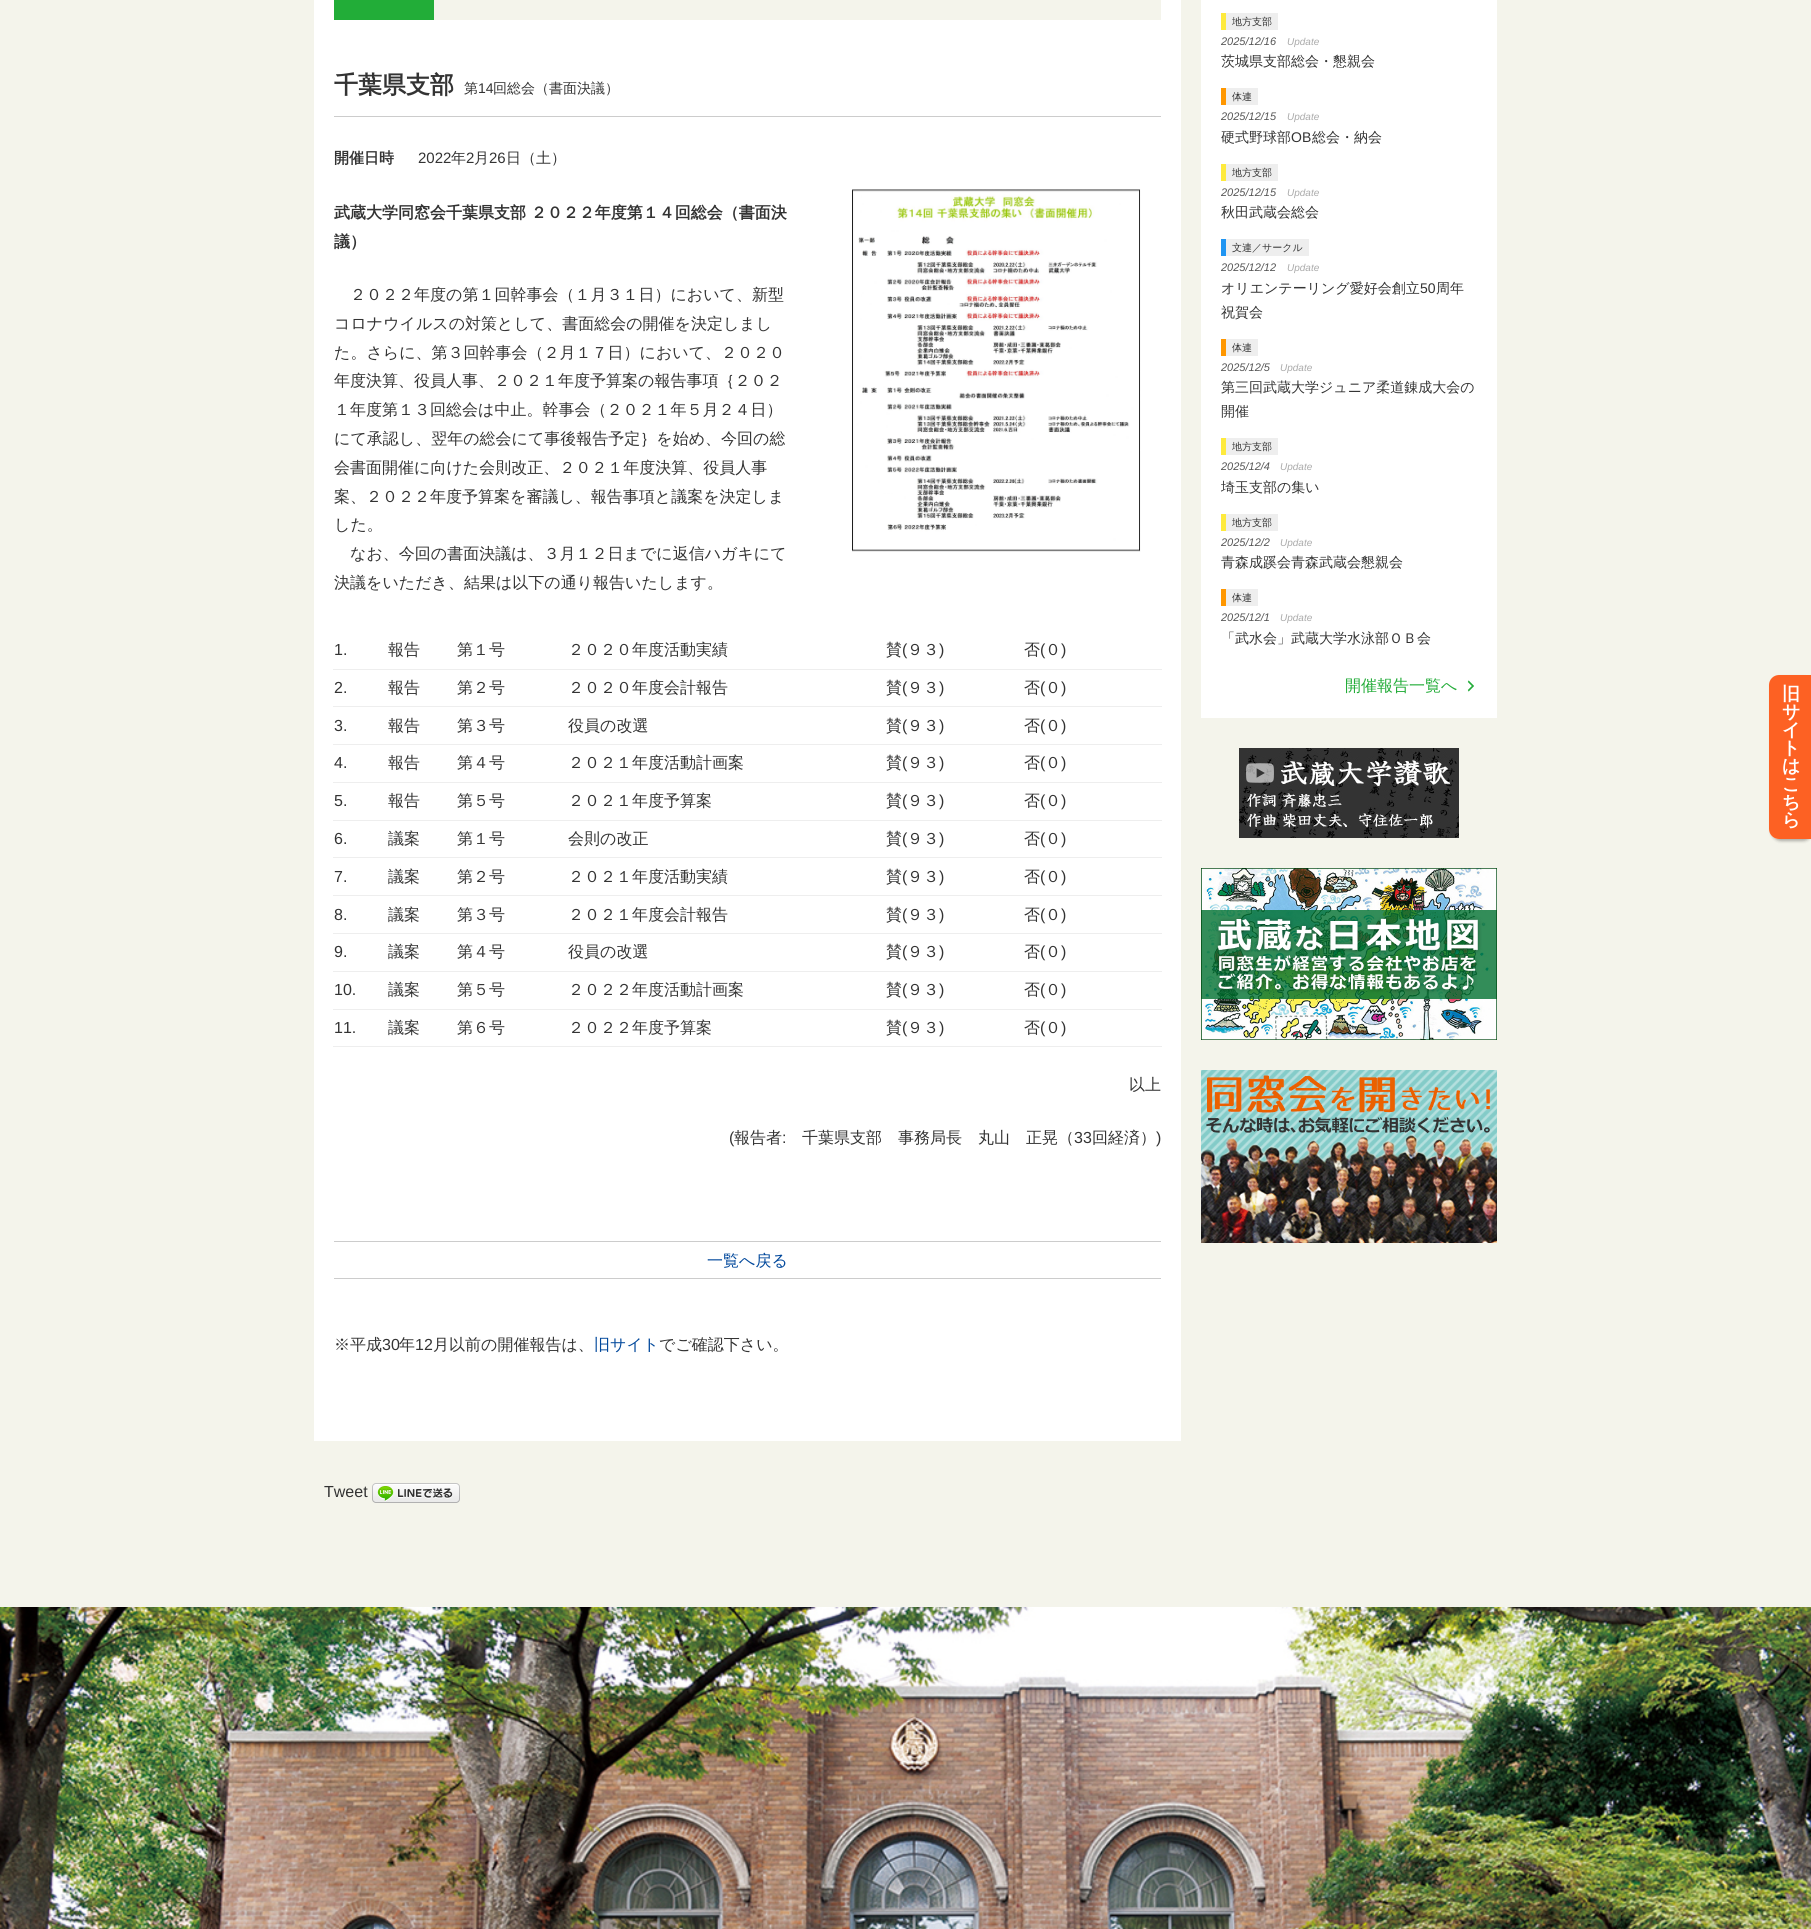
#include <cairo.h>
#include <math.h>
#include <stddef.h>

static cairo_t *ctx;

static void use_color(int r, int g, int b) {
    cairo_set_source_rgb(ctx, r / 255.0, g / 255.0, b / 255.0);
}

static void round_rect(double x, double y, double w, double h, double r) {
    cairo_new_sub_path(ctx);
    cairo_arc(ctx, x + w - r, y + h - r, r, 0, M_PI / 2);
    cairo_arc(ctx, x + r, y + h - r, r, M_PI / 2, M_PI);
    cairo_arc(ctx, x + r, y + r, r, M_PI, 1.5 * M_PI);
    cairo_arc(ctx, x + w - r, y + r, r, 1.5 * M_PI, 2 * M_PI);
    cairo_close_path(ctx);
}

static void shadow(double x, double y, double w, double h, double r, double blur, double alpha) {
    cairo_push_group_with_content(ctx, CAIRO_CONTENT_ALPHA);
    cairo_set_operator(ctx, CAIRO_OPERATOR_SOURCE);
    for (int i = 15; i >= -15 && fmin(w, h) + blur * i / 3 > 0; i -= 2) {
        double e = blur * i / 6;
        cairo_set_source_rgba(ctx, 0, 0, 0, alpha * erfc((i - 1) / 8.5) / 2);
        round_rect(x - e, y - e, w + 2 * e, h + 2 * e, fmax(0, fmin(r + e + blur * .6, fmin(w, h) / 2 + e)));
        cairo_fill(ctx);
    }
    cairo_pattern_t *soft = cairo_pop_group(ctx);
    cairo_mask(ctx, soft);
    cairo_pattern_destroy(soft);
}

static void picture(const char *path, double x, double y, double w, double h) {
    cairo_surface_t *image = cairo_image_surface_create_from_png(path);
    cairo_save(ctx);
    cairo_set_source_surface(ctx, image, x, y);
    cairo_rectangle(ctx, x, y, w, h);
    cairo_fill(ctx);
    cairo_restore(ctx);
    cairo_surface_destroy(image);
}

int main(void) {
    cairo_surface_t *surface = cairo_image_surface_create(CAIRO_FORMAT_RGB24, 1811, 1929);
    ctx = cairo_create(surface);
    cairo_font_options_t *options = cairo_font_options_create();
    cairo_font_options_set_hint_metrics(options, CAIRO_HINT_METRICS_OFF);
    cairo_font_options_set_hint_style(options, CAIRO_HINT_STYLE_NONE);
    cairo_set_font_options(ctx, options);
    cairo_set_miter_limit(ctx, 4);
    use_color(244, 244, 235);
    cairo_paint(ctx);
    use_color(255, 255, 255);
    cairo_rectangle(ctx, 314, 0, 867, 1441);
    cairo_fill(ctx);
    use_color(244, 244, 235);
    cairo_rectangle(ctx, 434, 0, 727, 20);
    cairo_fill(ctx);
    use_color(34, 173, 56);
    cairo_rectangle(ctx, 334, 0, 100, 20);
    cairo_fill(ctx);
    use_color(204, 204, 204);
    cairo_rectangle(ctx, 334, 116, 827, 1);
    cairo_fill(ctx);
    cairo_select_font_face(ctx, "WenQuanYi Zen Hei", CAIRO_FONT_SLANT_NORMAL, CAIRO_FONT_WEIGHT_BOLD);
    cairo_set_font_size(ctx, 24);
    use_color(51, 51, 51);
    cairo_move_to(ctx, 334, 93);
    cairo_show_text(ctx, "千葉県支部");
    cairo_select_font_face(ctx, "WenQuanYi Zen Hei Medium", CAIRO_FONT_SLANT_NORMAL, CAIRO_FONT_WEIGHT_NORMAL);
    cairo_set_font_size(ctx, 14);
    cairo_move_to(ctx, 464, 93);
    cairo_show_text(ctx, "第");
    cairo_select_font_face(ctx, "Liberation Sans", CAIRO_FONT_SLANT_NORMAL, CAIRO_FONT_WEIGHT_NORMAL);
    cairo_move_to(ctx, 478, 93);
    cairo_show_text(ctx, "14");
    cairo_select_font_face(ctx, "WenQuanYi Zen Hei Medium", CAIRO_FONT_SLANT_NORMAL, CAIRO_FONT_WEIGHT_NORMAL);
    cairo_move_to(ctx, 493, 93);
    cairo_show_text(ctx, "回総会（書面決議）");
    cairo_select_font_face(ctx, "WenQuanYi Zen Hei", CAIRO_FONT_SLANT_NORMAL, CAIRO_FONT_WEIGHT_BOLD);
    cairo_set_font_size(ctx, 15);
    cairo_move_to(ctx, 334, 163);
    cairo_show_text(ctx, "開催日時");
    cairo_select_font_face(ctx, "Liberation Sans", CAIRO_FONT_SLANT_NORMAL, CAIRO_FONT_WEIGHT_NORMAL);
    cairo_move_to(ctx, 418, 163);
    cairo_show_text(ctx, "2022");
    cairo_select_font_face(ctx, "WenQuanYi Zen Hei Medium", CAIRO_FONT_SLANT_NORMAL, CAIRO_FONT_WEIGHT_NORMAL);
    cairo_move_to(ctx, 451, 163);
    cairo_show_text(ctx, "年");
    cairo_select_font_face(ctx, "Liberation Sans", CAIRO_FONT_SLANT_NORMAL, CAIRO_FONT_WEIGHT_NORMAL);
    cairo_move_to(ctx, 466, 163);
    cairo_show_text(ctx, "2");
    cairo_select_font_face(ctx, "WenQuanYi Zen Hei Medium", CAIRO_FONT_SLANT_NORMAL, CAIRO_FONT_WEIGHT_NORMAL);
    cairo_move_to(ctx, 474, 163);
    cairo_show_text(ctx, "月");
    cairo_select_font_face(ctx, "Liberation Sans", CAIRO_FONT_SLANT_NORMAL, CAIRO_FONT_WEIGHT_NORMAL);
    cairo_move_to(ctx, 489, 163);
    cairo_show_text(ctx, "26");
    cairo_select_font_face(ctx, "WenQuanYi Zen Hei Medium", CAIRO_FONT_SLANT_NORMAL, CAIRO_FONT_WEIGHT_NORMAL);
    cairo_move_to(ctx, 506, 163);
    cairo_show_text(ctx, "日（土）");
    cairo_select_font_face(ctx, "WenQuanYi Zen Hei", CAIRO_FONT_SLANT_NORMAL, CAIRO_FONT_WEIGHT_BOLD);
    cairo_set_font_size(ctx, 16);
    cairo_move_to(ctx, 334, 218);
    cairo_show_text(ctx, "武蔵大学同窓会千葉県支部 ２０２２年度第１４回総会（書面決");
    cairo_move_to(ctx, 334, 247);
    cairo_show_text(ctx, "議）");
    picture("img1.png", 852, 189, 289, 363);
    cairo_select_font_face(ctx, "WenQuanYi Zen Hei Medium", CAIRO_FONT_SLANT_NORMAL, CAIRO_FONT_WEIGHT_NORMAL);
    cairo_move_to(ctx, 350, 300);
    cairo_show_text(ctx, "２０２２年度の第１回幹事会（１月３１日）において、新型");
    cairo_move_to(ctx, 334, 329);
    cairo_show_text(ctx, "コロナウイルスの対策として、書面総会の開催を決定しまし");
    cairo_move_to(ctx, 334, 358);
    cairo_show_text(ctx, "た。さらに、第３回幹事会（２月１７日）において、２０２０");
    cairo_move_to(ctx, 334, 386);
    cairo_show_text(ctx, "年度決算、役員人事、２０２１年度予算案の報告事項｛２０２");
    cairo_move_to(ctx, 334, 415);
    cairo_show_text(ctx, "１年度第１３回総会は中止。幹事会（２０２１年５月２４日）");
    cairo_move_to(ctx, 334, 444);
    cairo_show_text(ctx, "にて承認し、翌年の総会にて事後報告予定｝を始め、今回の総");
    cairo_move_to(ctx, 334, 473);
    cairo_show_text(ctx, "会書面開催に向けた会則改正、２０２１年度決算、役員人事");
    cairo_move_to(ctx, 334, 502);
    cairo_show_text(ctx, "案、２０２２年度予算案を審議し、報告事項と議案を決定しま");
    cairo_move_to(ctx, 334, 530);
    cairo_show_text(ctx, "した。");
    cairo_move_to(ctx, 350, 559);
    cairo_show_text(ctx, "なお、今回の書面決議は、３月１２日までに返信ハガキにて");
    cairo_move_to(ctx, 334, 588);
    cairo_show_text(ctx, "決議をいただき、結果は以下の通り報告いたします。");
    use_color(238, 238, 238);
    cairo_rectangle(ctx, 333, 669, 829, 1);
    cairo_fill(ctx);
    cairo_select_font_face(ctx, "Liberation Sans", CAIRO_FONT_SLANT_NORMAL, CAIRO_FONT_WEIGHT_NORMAL);
    use_color(51, 51, 51);
    cairo_move_to(ctx, 334, 655);
    cairo_show_text(ctx, "1.");
    cairo_select_font_face(ctx, "WenQuanYi Zen Hei Medium", CAIRO_FONT_SLANT_NORMAL, CAIRO_FONT_WEIGHT_NORMAL);
    cairo_move_to(ctx, 388, 655);
    cairo_show_text(ctx, "報告");
    cairo_move_to(ctx, 457, 655);
    cairo_show_text(ctx, "第１号");
    cairo_move_to(ctx, 568, 655);
    cairo_show_text(ctx, "２０２０年度活動実績");
    cairo_move_to(ctx, 886, 655);
    cairo_show_text(ctx, "賛");
    cairo_select_font_face(ctx, "Liberation Sans", CAIRO_FONT_SLANT_NORMAL, CAIRO_FONT_WEIGHT_NORMAL);
    cairo_move_to(ctx, 902, 655);
    cairo_show_text(ctx, "(");
    cairo_select_font_face(ctx, "WenQuanYi Zen Hei Medium", CAIRO_FONT_SLANT_NORMAL, CAIRO_FONT_WEIGHT_NORMAL);
    cairo_move_to(ctx, 907, 655);
    cairo_show_text(ctx, "９３");
    cairo_select_font_face(ctx, "Liberation Sans", CAIRO_FONT_SLANT_NORMAL, CAIRO_FONT_WEIGHT_NORMAL);
    cairo_move_to(ctx, 939, 655);
    cairo_show_text(ctx, ")");
    cairo_select_font_face(ctx, "WenQuanYi Zen Hei Medium", CAIRO_FONT_SLANT_NORMAL, CAIRO_FONT_WEIGHT_NORMAL);
    cairo_move_to(ctx, 1024, 655);
    cairo_show_text(ctx, "否");
    cairo_select_font_face(ctx, "Liberation Sans", CAIRO_FONT_SLANT_NORMAL, CAIRO_FONT_WEIGHT_NORMAL);
    cairo_move_to(ctx, 1040, 655);
    cairo_show_text(ctx, "(");
    cairo_select_font_face(ctx, "WenQuanYi Zen Hei Medium", CAIRO_FONT_SLANT_NORMAL, CAIRO_FONT_WEIGHT_NORMAL);
    cairo_move_to(ctx, 1045, 655);
    cairo_show_text(ctx, "０");
    cairo_select_font_face(ctx, "Liberation Sans", CAIRO_FONT_SLANT_NORMAL, CAIRO_FONT_WEIGHT_NORMAL);
    cairo_move_to(ctx, 1061, 655);
    cairo_show_text(ctx, ")");
    use_color(238, 238, 238);
    cairo_rectangle(ctx, 333, 706, 829, 1);
    cairo_fill(ctx);
    use_color(51, 51, 51);
    cairo_move_to(ctx, 334, 693);
    cairo_show_text(ctx, "2.");
    cairo_select_font_face(ctx, "WenQuanYi Zen Hei Medium", CAIRO_FONT_SLANT_NORMAL, CAIRO_FONT_WEIGHT_NORMAL);
    cairo_move_to(ctx, 388, 693);
    cairo_show_text(ctx, "報告");
    cairo_move_to(ctx, 457, 693);
    cairo_show_text(ctx, "第２号");
    cairo_move_to(ctx, 568, 693);
    cairo_show_text(ctx, "２０２０年度会計報告");
    cairo_move_to(ctx, 886, 693);
    cairo_show_text(ctx, "賛");
    cairo_select_font_face(ctx, "Liberation Sans", CAIRO_FONT_SLANT_NORMAL, CAIRO_FONT_WEIGHT_NORMAL);
    cairo_move_to(ctx, 902, 693);
    cairo_show_text(ctx, "(");
    cairo_select_font_face(ctx, "WenQuanYi Zen Hei Medium", CAIRO_FONT_SLANT_NORMAL, CAIRO_FONT_WEIGHT_NORMAL);
    cairo_move_to(ctx, 907, 693);
    cairo_show_text(ctx, "９３");
    cairo_select_font_face(ctx, "Liberation Sans", CAIRO_FONT_SLANT_NORMAL, CAIRO_FONT_WEIGHT_NORMAL);
    cairo_move_to(ctx, 939, 693);
    cairo_show_text(ctx, ")");
    cairo_select_font_face(ctx, "WenQuanYi Zen Hei Medium", CAIRO_FONT_SLANT_NORMAL, CAIRO_FONT_WEIGHT_NORMAL);
    cairo_move_to(ctx, 1024, 693);
    cairo_show_text(ctx, "否");
    cairo_select_font_face(ctx, "Liberation Sans", CAIRO_FONT_SLANT_NORMAL, CAIRO_FONT_WEIGHT_NORMAL);
    cairo_move_to(ctx, 1040, 693);
    cairo_show_text(ctx, "(");
    cairo_select_font_face(ctx, "WenQuanYi Zen Hei Medium", CAIRO_FONT_SLANT_NORMAL, CAIRO_FONT_WEIGHT_NORMAL);
    cairo_move_to(ctx, 1045, 693);
    cairo_show_text(ctx, "０");
    cairo_select_font_face(ctx, "Liberation Sans", CAIRO_FONT_SLANT_NORMAL, CAIRO_FONT_WEIGHT_NORMAL);
    cairo_move_to(ctx, 1061, 693);
    cairo_show_text(ctx, ")");
    use_color(238, 238, 238);
    cairo_rectangle(ctx, 333, 744, 829, 1);
    cairo_fill(ctx);
    use_color(51, 51, 51);
    cairo_move_to(ctx, 334, 731);
    cairo_show_text(ctx, "3.");
    cairo_select_font_face(ctx, "WenQuanYi Zen Hei Medium", CAIRO_FONT_SLANT_NORMAL, CAIRO_FONT_WEIGHT_NORMAL);
    cairo_move_to(ctx, 388, 731);
    cairo_show_text(ctx, "報告");
    cairo_move_to(ctx, 457, 731);
    cairo_show_text(ctx, "第３号");
    cairo_move_to(ctx, 568, 731);
    cairo_show_text(ctx, "役員の改選");
    cairo_move_to(ctx, 886, 731);
    cairo_show_text(ctx, "賛");
    cairo_select_font_face(ctx, "Liberation Sans", CAIRO_FONT_SLANT_NORMAL, CAIRO_FONT_WEIGHT_NORMAL);
    cairo_move_to(ctx, 902, 731);
    cairo_show_text(ctx, "(");
    cairo_select_font_face(ctx, "WenQuanYi Zen Hei Medium", CAIRO_FONT_SLANT_NORMAL, CAIRO_FONT_WEIGHT_NORMAL);
    cairo_move_to(ctx, 907, 731);
    cairo_show_text(ctx, "９３");
    cairo_select_font_face(ctx, "Liberation Sans", CAIRO_FONT_SLANT_NORMAL, CAIRO_FONT_WEIGHT_NORMAL);
    cairo_move_to(ctx, 939, 731);
    cairo_show_text(ctx, ")");
    cairo_select_font_face(ctx, "WenQuanYi Zen Hei Medium", CAIRO_FONT_SLANT_NORMAL, CAIRO_FONT_WEIGHT_NORMAL);
    cairo_move_to(ctx, 1024, 731);
    cairo_show_text(ctx, "否");
    cairo_select_font_face(ctx, "Liberation Sans", CAIRO_FONT_SLANT_NORMAL, CAIRO_FONT_WEIGHT_NORMAL);
    cairo_move_to(ctx, 1040, 731);
    cairo_show_text(ctx, "(");
    cairo_select_font_face(ctx, "WenQuanYi Zen Hei Medium", CAIRO_FONT_SLANT_NORMAL, CAIRO_FONT_WEIGHT_NORMAL);
    cairo_move_to(ctx, 1045, 731);
    cairo_show_text(ctx, "０");
    cairo_select_font_face(ctx, "Liberation Sans", CAIRO_FONT_SLANT_NORMAL, CAIRO_FONT_WEIGHT_NORMAL);
    cairo_move_to(ctx, 1061, 731);
    cairo_show_text(ctx, ")");
    use_color(238, 238, 238);
    cairo_rectangle(ctx, 333, 782, 829, 1);
    cairo_fill(ctx);
    use_color(51, 51, 51);
    cairo_move_to(ctx, 334, 768);
    cairo_show_text(ctx, "4.");
    cairo_select_font_face(ctx, "WenQuanYi Zen Hei Medium", CAIRO_FONT_SLANT_NORMAL, CAIRO_FONT_WEIGHT_NORMAL);
    cairo_move_to(ctx, 388, 768);
    cairo_show_text(ctx, "報告");
    cairo_move_to(ctx, 457, 768);
    cairo_show_text(ctx, "第４号");
    cairo_move_to(ctx, 568, 768);
    cairo_show_text(ctx, "２０２１年度活動計画案");
    cairo_move_to(ctx, 886, 768);
    cairo_show_text(ctx, "賛");
    cairo_select_font_face(ctx, "Liberation Sans", CAIRO_FONT_SLANT_NORMAL, CAIRO_FONT_WEIGHT_NORMAL);
    cairo_move_to(ctx, 902, 768);
    cairo_show_text(ctx, "(");
    cairo_select_font_face(ctx, "WenQuanYi Zen Hei Medium", CAIRO_FONT_SLANT_NORMAL, CAIRO_FONT_WEIGHT_NORMAL);
    cairo_move_to(ctx, 907, 768);
    cairo_show_text(ctx, "９３");
    cairo_select_font_face(ctx, "Liberation Sans", CAIRO_FONT_SLANT_NORMAL, CAIRO_FONT_WEIGHT_NORMAL);
    cairo_move_to(ctx, 939, 768);
    cairo_show_text(ctx, ")");
    cairo_select_font_face(ctx, "WenQuanYi Zen Hei Medium", CAIRO_FONT_SLANT_NORMAL, CAIRO_FONT_WEIGHT_NORMAL);
    cairo_move_to(ctx, 1024, 768);
    cairo_show_text(ctx, "否");
    cairo_select_font_face(ctx, "Liberation Sans", CAIRO_FONT_SLANT_NORMAL, CAIRO_FONT_WEIGHT_NORMAL);
    cairo_move_to(ctx, 1040, 768);
    cairo_show_text(ctx, "(");
    cairo_select_font_face(ctx, "WenQuanYi Zen Hei Medium", CAIRO_FONT_SLANT_NORMAL, CAIRO_FONT_WEIGHT_NORMAL);
    cairo_move_to(ctx, 1045, 768);
    cairo_show_text(ctx, "０");
    cairo_select_font_face(ctx, "Liberation Sans", CAIRO_FONT_SLANT_NORMAL, CAIRO_FONT_WEIGHT_NORMAL);
    cairo_move_to(ctx, 1061, 768);
    cairo_show_text(ctx, ")");
    use_color(238, 238, 238);
    cairo_rectangle(ctx, 333, 820, 829, 1);
    cairo_fill(ctx);
    use_color(51, 51, 51);
    cairo_move_to(ctx, 334, 806);
    cairo_show_text(ctx, "5.");
    cairo_select_font_face(ctx, "WenQuanYi Zen Hei Medium", CAIRO_FONT_SLANT_NORMAL, CAIRO_FONT_WEIGHT_NORMAL);
    cairo_move_to(ctx, 388, 806);
    cairo_show_text(ctx, "報告");
    cairo_move_to(ctx, 457, 806);
    cairo_show_text(ctx, "第５号");
    cairo_move_to(ctx, 568, 806);
    cairo_show_text(ctx, "２０２１年度予算案");
    cairo_move_to(ctx, 886, 806);
    cairo_show_text(ctx, "賛");
    cairo_select_font_face(ctx, "Liberation Sans", CAIRO_FONT_SLANT_NORMAL, CAIRO_FONT_WEIGHT_NORMAL);
    cairo_move_to(ctx, 902, 806);
    cairo_show_text(ctx, "(");
    cairo_select_font_face(ctx, "WenQuanYi Zen Hei Medium", CAIRO_FONT_SLANT_NORMAL, CAIRO_FONT_WEIGHT_NORMAL);
    cairo_move_to(ctx, 907, 806);
    cairo_show_text(ctx, "９３");
    cairo_select_font_face(ctx, "Liberation Sans", CAIRO_FONT_SLANT_NORMAL, CAIRO_FONT_WEIGHT_NORMAL);
    cairo_move_to(ctx, 939, 806);
    cairo_show_text(ctx, ")");
    cairo_select_font_face(ctx, "WenQuanYi Zen Hei Medium", CAIRO_FONT_SLANT_NORMAL, CAIRO_FONT_WEIGHT_NORMAL);
    cairo_move_to(ctx, 1024, 806);
    cairo_show_text(ctx, "否");
    cairo_select_font_face(ctx, "Liberation Sans", CAIRO_FONT_SLANT_NORMAL, CAIRO_FONT_WEIGHT_NORMAL);
    cairo_move_to(ctx, 1040, 806);
    cairo_show_text(ctx, "(");
    cairo_select_font_face(ctx, "WenQuanYi Zen Hei Medium", CAIRO_FONT_SLANT_NORMAL, CAIRO_FONT_WEIGHT_NORMAL);
    cairo_move_to(ctx, 1045, 806);
    cairo_show_text(ctx, "０");
    cairo_select_font_face(ctx, "Liberation Sans", CAIRO_FONT_SLANT_NORMAL, CAIRO_FONT_WEIGHT_NORMAL);
    cairo_move_to(ctx, 1061, 806);
    cairo_show_text(ctx, ")");
    use_color(238, 238, 238);
    cairo_rectangle(ctx, 333, 857, 829, 1);
    cairo_fill(ctx);
    use_color(51, 51, 51);
    cairo_move_to(ctx, 334, 844);
    cairo_show_text(ctx, "6.");
    cairo_select_font_face(ctx, "WenQuanYi Zen Hei Medium", CAIRO_FONT_SLANT_NORMAL, CAIRO_FONT_WEIGHT_NORMAL);
    cairo_move_to(ctx, 388, 844);
    cairo_show_text(ctx, "議案");
    cairo_move_to(ctx, 457, 844);
    cairo_show_text(ctx, "第１号");
    cairo_move_to(ctx, 568, 844);
    cairo_show_text(ctx, "会則の改正");
    cairo_move_to(ctx, 886, 844);
    cairo_show_text(ctx, "賛");
    cairo_select_font_face(ctx, "Liberation Sans", CAIRO_FONT_SLANT_NORMAL, CAIRO_FONT_WEIGHT_NORMAL);
    cairo_move_to(ctx, 902, 844);
    cairo_show_text(ctx, "(");
    cairo_select_font_face(ctx, "WenQuanYi Zen Hei Medium", CAIRO_FONT_SLANT_NORMAL, CAIRO_FONT_WEIGHT_NORMAL);
    cairo_move_to(ctx, 907, 844);
    cairo_show_text(ctx, "９３");
    cairo_select_font_face(ctx, "Liberation Sans", CAIRO_FONT_SLANT_NORMAL, CAIRO_FONT_WEIGHT_NORMAL);
    cairo_move_to(ctx, 939, 844);
    cairo_show_text(ctx, ")");
    cairo_select_font_face(ctx, "WenQuanYi Zen Hei Medium", CAIRO_FONT_SLANT_NORMAL, CAIRO_FONT_WEIGHT_NORMAL);
    cairo_move_to(ctx, 1024, 844);
    cairo_show_text(ctx, "否");
    cairo_select_font_face(ctx, "Liberation Sans", CAIRO_FONT_SLANT_NORMAL, CAIRO_FONT_WEIGHT_NORMAL);
    cairo_move_to(ctx, 1040, 844);
    cairo_show_text(ctx, "(");
    cairo_select_font_face(ctx, "WenQuanYi Zen Hei Medium", CAIRO_FONT_SLANT_NORMAL, CAIRO_FONT_WEIGHT_NORMAL);
    cairo_move_to(ctx, 1045, 844);
    cairo_show_text(ctx, "０");
    cairo_select_font_face(ctx, "Liberation Sans", CAIRO_FONT_SLANT_NORMAL, CAIRO_FONT_WEIGHT_NORMAL);
    cairo_move_to(ctx, 1061, 844);
    cairo_show_text(ctx, ")");
    use_color(238, 238, 238);
    cairo_rectangle(ctx, 333, 895, 829, 1);
    cairo_fill(ctx);
    use_color(51, 51, 51);
    cairo_move_to(ctx, 334, 882);
    cairo_show_text(ctx, "7.");
    cairo_select_font_face(ctx, "WenQuanYi Zen Hei Medium", CAIRO_FONT_SLANT_NORMAL, CAIRO_FONT_WEIGHT_NORMAL);
    cairo_move_to(ctx, 388, 882);
    cairo_show_text(ctx, "議案");
    cairo_move_to(ctx, 457, 882);
    cairo_show_text(ctx, "第２号");
    cairo_move_to(ctx, 568, 882);
    cairo_show_text(ctx, "２０２１年度活動実績");
    cairo_move_to(ctx, 886, 882);
    cairo_show_text(ctx, "賛");
    cairo_select_font_face(ctx, "Liberation Sans", CAIRO_FONT_SLANT_NORMAL, CAIRO_FONT_WEIGHT_NORMAL);
    cairo_move_to(ctx, 902, 882);
    cairo_show_text(ctx, "(");
    cairo_select_font_face(ctx, "WenQuanYi Zen Hei Medium", CAIRO_FONT_SLANT_NORMAL, CAIRO_FONT_WEIGHT_NORMAL);
    cairo_move_to(ctx, 907, 882);
    cairo_show_text(ctx, "９３");
    cairo_select_font_face(ctx, "Liberation Sans", CAIRO_FONT_SLANT_NORMAL, CAIRO_FONT_WEIGHT_NORMAL);
    cairo_move_to(ctx, 939, 882);
    cairo_show_text(ctx, ")");
    cairo_select_font_face(ctx, "WenQuanYi Zen Hei Medium", CAIRO_FONT_SLANT_NORMAL, CAIRO_FONT_WEIGHT_NORMAL);
    cairo_move_to(ctx, 1024, 882);
    cairo_show_text(ctx, "否");
    cairo_select_font_face(ctx, "Liberation Sans", CAIRO_FONT_SLANT_NORMAL, CAIRO_FONT_WEIGHT_NORMAL);
    cairo_move_to(ctx, 1040, 882);
    cairo_show_text(ctx, "(");
    cairo_select_font_face(ctx, "WenQuanYi Zen Hei Medium", CAIRO_FONT_SLANT_NORMAL, CAIRO_FONT_WEIGHT_NORMAL);
    cairo_move_to(ctx, 1045, 882);
    cairo_show_text(ctx, "０");
    cairo_select_font_face(ctx, "Liberation Sans", CAIRO_FONT_SLANT_NORMAL, CAIRO_FONT_WEIGHT_NORMAL);
    cairo_move_to(ctx, 1061, 882);
    cairo_show_text(ctx, ")");
    use_color(238, 238, 238);
    cairo_rectangle(ctx, 333, 933, 829, 1);
    cairo_fill(ctx);
    use_color(51, 51, 51);
    cairo_move_to(ctx, 334, 920);
    cairo_show_text(ctx, "8.");
    cairo_select_font_face(ctx, "WenQuanYi Zen Hei Medium", CAIRO_FONT_SLANT_NORMAL, CAIRO_FONT_WEIGHT_NORMAL);
    cairo_move_to(ctx, 388, 920);
    cairo_show_text(ctx, "議案");
    cairo_move_to(ctx, 457, 920);
    cairo_show_text(ctx, "第３号");
    cairo_move_to(ctx, 568, 920);
    cairo_show_text(ctx, "２０２１年度会計報告");
    cairo_move_to(ctx, 886, 920);
    cairo_show_text(ctx, "賛");
    cairo_select_font_face(ctx, "Liberation Sans", CAIRO_FONT_SLANT_NORMAL, CAIRO_FONT_WEIGHT_NORMAL);
    cairo_move_to(ctx, 902, 920);
    cairo_show_text(ctx, "(");
    cairo_select_font_face(ctx, "WenQuanYi Zen Hei Medium", CAIRO_FONT_SLANT_NORMAL, CAIRO_FONT_WEIGHT_NORMAL);
    cairo_move_to(ctx, 907, 920);
    cairo_show_text(ctx, "９３");
    cairo_select_font_face(ctx, "Liberation Sans", CAIRO_FONT_SLANT_NORMAL, CAIRO_FONT_WEIGHT_NORMAL);
    cairo_move_to(ctx, 939, 920);
    cairo_show_text(ctx, ")");
    cairo_select_font_face(ctx, "WenQuanYi Zen Hei Medium", CAIRO_FONT_SLANT_NORMAL, CAIRO_FONT_WEIGHT_NORMAL);
    cairo_move_to(ctx, 1024, 920);
    cairo_show_text(ctx, "否");
    cairo_select_font_face(ctx, "Liberation Sans", CAIRO_FONT_SLANT_NORMAL, CAIRO_FONT_WEIGHT_NORMAL);
    cairo_move_to(ctx, 1040, 920);
    cairo_show_text(ctx, "(");
    cairo_select_font_face(ctx, "WenQuanYi Zen Hei Medium", CAIRO_FONT_SLANT_NORMAL, CAIRO_FONT_WEIGHT_NORMAL);
    cairo_move_to(ctx, 1045, 920);
    cairo_show_text(ctx, "０");
    cairo_select_font_face(ctx, "Liberation Sans", CAIRO_FONT_SLANT_NORMAL, CAIRO_FONT_WEIGHT_NORMAL);
    cairo_move_to(ctx, 1061, 920);
    cairo_show_text(ctx, ")");
    use_color(238, 238, 238);
    cairo_rectangle(ctx, 333, 971, 829, 1);
    cairo_fill(ctx);
    use_color(51, 51, 51);
    cairo_move_to(ctx, 334, 957);
    cairo_show_text(ctx, "9.");
    cairo_select_font_face(ctx, "WenQuanYi Zen Hei Medium", CAIRO_FONT_SLANT_NORMAL, CAIRO_FONT_WEIGHT_NORMAL);
    cairo_move_to(ctx, 388, 957);
    cairo_show_text(ctx, "議案");
    cairo_move_to(ctx, 457, 957);
    cairo_show_text(ctx, "第４号");
    cairo_move_to(ctx, 568, 957);
    cairo_show_text(ctx, "役員の改選");
    cairo_move_to(ctx, 886, 957);
    cairo_show_text(ctx, "賛");
    cairo_select_font_face(ctx, "Liberation Sans", CAIRO_FONT_SLANT_NORMAL, CAIRO_FONT_WEIGHT_NORMAL);
    cairo_move_to(ctx, 902, 957);
    cairo_show_text(ctx, "(");
    cairo_select_font_face(ctx, "WenQuanYi Zen Hei Medium", CAIRO_FONT_SLANT_NORMAL, CAIRO_FONT_WEIGHT_NORMAL);
    cairo_move_to(ctx, 907, 957);
    cairo_show_text(ctx, "９３");
    cairo_select_font_face(ctx, "Liberation Sans", CAIRO_FONT_SLANT_NORMAL, CAIRO_FONT_WEIGHT_NORMAL);
    cairo_move_to(ctx, 939, 957);
    cairo_show_text(ctx, ")");
    cairo_select_font_face(ctx, "WenQuanYi Zen Hei Medium", CAIRO_FONT_SLANT_NORMAL, CAIRO_FONT_WEIGHT_NORMAL);
    cairo_move_to(ctx, 1024, 957);
    cairo_show_text(ctx, "否");
    cairo_select_font_face(ctx, "Liberation Sans", CAIRO_FONT_SLANT_NORMAL, CAIRO_FONT_WEIGHT_NORMAL);
    cairo_move_to(ctx, 1040, 957);
    cairo_show_text(ctx, "(");
    cairo_select_font_face(ctx, "WenQuanYi Zen Hei Medium", CAIRO_FONT_SLANT_NORMAL, CAIRO_FONT_WEIGHT_NORMAL);
    cairo_move_to(ctx, 1045, 957);
    cairo_show_text(ctx, "０");
    cairo_select_font_face(ctx, "Liberation Sans", CAIRO_FONT_SLANT_NORMAL, CAIRO_FONT_WEIGHT_NORMAL);
    cairo_move_to(ctx, 1061, 957);
    cairo_show_text(ctx, ")");
    use_color(238, 238, 238);
    cairo_rectangle(ctx, 333, 1009, 829, 1);
    cairo_fill(ctx);
    use_color(51, 51, 51);
    cairo_move_to(ctx, 334, 995);
    cairo_show_text(ctx, "10.");
    cairo_select_font_face(ctx, "WenQuanYi Zen Hei Medium", CAIRO_FONT_SLANT_NORMAL, CAIRO_FONT_WEIGHT_NORMAL);
    cairo_move_to(ctx, 388, 995);
    cairo_show_text(ctx, "議案");
    cairo_move_to(ctx, 457, 995);
    cairo_show_text(ctx, "第５号");
    cairo_move_to(ctx, 568, 995);
    cairo_show_text(ctx, "２０２２年度活動計画案");
    cairo_move_to(ctx, 886, 995);
    cairo_show_text(ctx, "賛");
    cairo_select_font_face(ctx, "Liberation Sans", CAIRO_FONT_SLANT_NORMAL, CAIRO_FONT_WEIGHT_NORMAL);
    cairo_move_to(ctx, 902, 995);
    cairo_show_text(ctx, "(");
    cairo_select_font_face(ctx, "WenQuanYi Zen Hei Medium", CAIRO_FONT_SLANT_NORMAL, CAIRO_FONT_WEIGHT_NORMAL);
    cairo_move_to(ctx, 907, 995);
    cairo_show_text(ctx, "９３");
    cairo_select_font_face(ctx, "Liberation Sans", CAIRO_FONT_SLANT_NORMAL, CAIRO_FONT_WEIGHT_NORMAL);
    cairo_move_to(ctx, 939, 995);
    cairo_show_text(ctx, ")");
    cairo_select_font_face(ctx, "WenQuanYi Zen Hei Medium", CAIRO_FONT_SLANT_NORMAL, CAIRO_FONT_WEIGHT_NORMAL);
    cairo_move_to(ctx, 1024, 995);
    cairo_show_text(ctx, "否");
    cairo_select_font_face(ctx, "Liberation Sans", CAIRO_FONT_SLANT_NORMAL, CAIRO_FONT_WEIGHT_NORMAL);
    cairo_move_to(ctx, 1040, 995);
    cairo_show_text(ctx, "(");
    cairo_select_font_face(ctx, "WenQuanYi Zen Hei Medium", CAIRO_FONT_SLANT_NORMAL, CAIRO_FONT_WEIGHT_NORMAL);
    cairo_move_to(ctx, 1045, 995);
    cairo_show_text(ctx, "０");
    cairo_select_font_face(ctx, "Liberation Sans", CAIRO_FONT_SLANT_NORMAL, CAIRO_FONT_WEIGHT_NORMAL);
    cairo_move_to(ctx, 1061, 995);
    cairo_show_text(ctx, ")");
    use_color(238, 238, 238);
    cairo_rectangle(ctx, 333, 1046, 829, 1);
    cairo_fill(ctx);
    use_color(51, 51, 51);
    cairo_move_to(ctx, 334, 1033);
    cairo_show_text(ctx, "11.");
    cairo_select_font_face(ctx, "WenQuanYi Zen Hei Medium", CAIRO_FONT_SLANT_NORMAL, CAIRO_FONT_WEIGHT_NORMAL);
    cairo_move_to(ctx, 388, 1033);
    cairo_show_text(ctx, "議案");
    cairo_move_to(ctx, 457, 1033);
    cairo_show_text(ctx, "第６号");
    cairo_move_to(ctx, 568, 1033);
    cairo_show_text(ctx, "２０２２年度予算案");
    cairo_move_to(ctx, 886, 1033);
    cairo_show_text(ctx, "賛");
    cairo_select_font_face(ctx, "Liberation Sans", CAIRO_FONT_SLANT_NORMAL, CAIRO_FONT_WEIGHT_NORMAL);
    cairo_move_to(ctx, 902, 1033);
    cairo_show_text(ctx, "(");
    cairo_select_font_face(ctx, "WenQuanYi Zen Hei Medium", CAIRO_FONT_SLANT_NORMAL, CAIRO_FONT_WEIGHT_NORMAL);
    cairo_move_to(ctx, 907, 1033);
    cairo_show_text(ctx, "９３");
    cairo_select_font_face(ctx, "Liberation Sans", CAIRO_FONT_SLANT_NORMAL, CAIRO_FONT_WEIGHT_NORMAL);
    cairo_move_to(ctx, 939, 1033);
    cairo_show_text(ctx, ")");
    cairo_select_font_face(ctx, "WenQuanYi Zen Hei Medium", CAIRO_FONT_SLANT_NORMAL, CAIRO_FONT_WEIGHT_NORMAL);
    cairo_move_to(ctx, 1024, 1033);
    cairo_show_text(ctx, "否");
    cairo_select_font_face(ctx, "Liberation Sans", CAIRO_FONT_SLANT_NORMAL, CAIRO_FONT_WEIGHT_NORMAL);
    cairo_move_to(ctx, 1040, 1033);
    cairo_show_text(ctx, "(");
    cairo_select_font_face(ctx, "WenQuanYi Zen Hei Medium", CAIRO_FONT_SLANT_NORMAL, CAIRO_FONT_WEIGHT_NORMAL);
    cairo_move_to(ctx, 1045, 1033);
    cairo_show_text(ctx, "０");
    cairo_select_font_face(ctx, "Liberation Sans", CAIRO_FONT_SLANT_NORMAL, CAIRO_FONT_WEIGHT_NORMAL);
    cairo_move_to(ctx, 1061, 1033);
    cairo_show_text(ctx, ")");
    cairo_select_font_face(ctx, "WenQuanYi Zen Hei Medium", CAIRO_FONT_SLANT_NORMAL, CAIRO_FONT_WEIGHT_NORMAL);
    cairo_move_to(ctx, 1129, 1090);
    cairo_show_text(ctx, "以上");
    cairo_select_font_face(ctx, "Liberation Sans", CAIRO_FONT_SLANT_NORMAL, CAIRO_FONT_WEIGHT_NORMAL);
    cairo_move_to(ctx, 729, 1143);
    cairo_show_text(ctx, "(");
    cairo_select_font_face(ctx, "WenQuanYi Zen Hei Medium", CAIRO_FONT_SLANT_NORMAL, CAIRO_FONT_WEIGHT_NORMAL);
    cairo_move_to(ctx, 734, 1143);
    cairo_show_text(ctx, "報告者");
    cairo_select_font_face(ctx, "Liberation Sans", CAIRO_FONT_SLANT_NORMAL, CAIRO_FONT_WEIGHT_NORMAL);
    cairo_move_to(ctx, 782, 1143);
    cairo_show_text(ctx, ":");
    cairo_select_font_face(ctx, "WenQuanYi Zen Hei Medium", CAIRO_FONT_SLANT_NORMAL, CAIRO_FONT_WEIGHT_NORMAL);
    cairo_move_to(ctx, 802, 1143);
    cairo_show_text(ctx, "千葉県支部　事務局長　丸山　正晃（");
    cairo_select_font_face(ctx, "Liberation Sans", CAIRO_FONT_SLANT_NORMAL, CAIRO_FONT_WEIGHT_NORMAL);
    cairo_move_to(ctx, 1074, 1143);
    cairo_show_text(ctx, "33");
    cairo_select_font_face(ctx, "WenQuanYi Zen Hei Medium", CAIRO_FONT_SLANT_NORMAL, CAIRO_FONT_WEIGHT_NORMAL);
    cairo_move_to(ctx, 1092, 1143);
    cairo_show_text(ctx, "回経済）");
    cairo_select_font_face(ctx, "Liberation Sans", CAIRO_FONT_SLANT_NORMAL, CAIRO_FONT_WEIGHT_NORMAL);
    cairo_move_to(ctx, 1156, 1143);
    cairo_show_text(ctx, ")");
    use_color(204, 204, 204);
    cairo_rectangle(ctx, 334, 1241, 827, 1);
    cairo_fill(ctx);
    cairo_rectangle(ctx, 334, 1278, 827, 1);
    cairo_fill(ctx);
    cairo_select_font_face(ctx, "WenQuanYi Zen Hei Medium", CAIRO_FONT_SLANT_NORMAL, CAIRO_FONT_WEIGHT_NORMAL);
    use_color(0, 71, 155);
    cairo_move_to(ctx, 707, 1266);
    cairo_show_text(ctx, "一覧へ戻る");
    use_color(51, 51, 51);
    cairo_move_to(ctx, 334, 1350);
    cairo_show_text(ctx, "※平成");
    cairo_select_font_face(ctx, "Liberation Sans", CAIRO_FONT_SLANT_NORMAL, CAIRO_FONT_WEIGHT_NORMAL);
    cairo_move_to(ctx, 382, 1350);
    cairo_show_text(ctx, "30");
    cairo_select_font_face(ctx, "WenQuanYi Zen Hei Medium", CAIRO_FONT_SLANT_NORMAL, CAIRO_FONT_WEIGHT_NORMAL);
    cairo_move_to(ctx, 399, 1350);
    cairo_show_text(ctx, "年");
    cairo_select_font_face(ctx, "Liberation Sans", CAIRO_FONT_SLANT_NORMAL, CAIRO_FONT_WEIGHT_NORMAL);
    cairo_move_to(ctx, 415, 1350);
    cairo_show_text(ctx, "12");
    cairo_select_font_face(ctx, "WenQuanYi Zen Hei Medium", CAIRO_FONT_SLANT_NORMAL, CAIRO_FONT_WEIGHT_NORMAL);
    cairo_move_to(ctx, 433, 1350);
    cairo_show_text(ctx, "月以前の開催報告は、");
    use_color(0, 71, 155);
    cairo_move_to(ctx, 594, 1350);
    cairo_show_text(ctx, "旧サイト");
    use_color(51, 51, 51);
    cairo_move_to(ctx, 659, 1350);
    cairo_show_text(ctx, "でご確認下さい。");
    cairo_select_font_face(ctx, "Liberation Sans", CAIRO_FONT_SLANT_NORMAL, CAIRO_FONT_WEIGHT_NORMAL);
    cairo_move_to(ctx, 324, 1497);
    cairo_show_text(ctx, "Tweet");
    picture("img2.png", 372, 1483, 88, 20);
    use_color(255, 255, 255);
    cairo_rectangle(ctx, 1201, 0, 296, 718);
    cairo_fill(ctx);
    use_color(238, 238, 238);
    cairo_rectangle(ctx, 1226, 13, 52, 17);
    cairo_fill(ctx);
    use_color(254, 234, 61);
    cairo_rectangle(ctx, 1221, 13, 5, 17);
    cairo_fill(ctx);
    cairo_select_font_face(ctx, "WenQuanYi Zen Hei Medium", CAIRO_FONT_SLANT_NORMAL, CAIRO_FONT_WEIGHT_NORMAL);
    cairo_set_font_size(ctx, 10);
    use_color(51, 51, 51);
    cairo_move_to(ctx, 1232, 25);
    cairo_show_text(ctx, "地方支部");
    cairo_select_font_face(ctx, "Liberation Sans", CAIRO_FONT_SLANT_ITALIC, CAIRO_FONT_WEIGHT_NORMAL);
    cairo_set_font_size(ctx, 11);
    use_color(85, 85, 85);
    cairo_move_to(ctx, 1221, 45);
    cairo_show_text(ctx, "2025/12/16");
    cairo_set_font_size(ctx, 10);
    use_color(170, 170, 170);
    cairo_move_to(ctx, 1287, 45);
    cairo_show_text(ctx, "Update");
    cairo_select_font_face(ctx, "WenQuanYi Zen Hei Medium", CAIRO_FONT_SLANT_NORMAL, CAIRO_FONT_WEIGHT_NORMAL);
    cairo_set_font_size(ctx, 14);
    use_color(51, 51, 51);
    cairo_move_to(ctx, 1221, 66);
    cairo_show_text(ctx, "茨城県支部総会・懇親会");
    use_color(238, 238, 238);
    cairo_rectangle(ctx, 1226, 88, 32, 17);
    cairo_fill(ctx);
    use_color(255, 151, 0);
    cairo_rectangle(ctx, 1221, 88, 5, 17);
    cairo_fill(ctx);
    cairo_set_font_size(ctx, 10);
    use_color(51, 51, 51);
    cairo_move_to(ctx, 1232, 100);
    cairo_show_text(ctx, "体連");
    cairo_select_font_face(ctx, "Liberation Sans", CAIRO_FONT_SLANT_ITALIC, CAIRO_FONT_WEIGHT_NORMAL);
    cairo_set_font_size(ctx, 11);
    use_color(85, 85, 85);
    cairo_move_to(ctx, 1221, 120);
    cairo_show_text(ctx, "2025/12/15");
    cairo_set_font_size(ctx, 10);
    use_color(170, 170, 170);
    cairo_move_to(ctx, 1287, 120);
    cairo_show_text(ctx, "Update");
    cairo_select_font_face(ctx, "WenQuanYi Zen Hei Medium", CAIRO_FONT_SLANT_NORMAL, CAIRO_FONT_WEIGHT_NORMAL);
    cairo_set_font_size(ctx, 14);
    use_color(51, 51, 51);
    cairo_move_to(ctx, 1221, 142);
    cairo_show_text(ctx, "硬式野球部");
    cairo_select_font_face(ctx, "Liberation Sans", CAIRO_FONT_SLANT_NORMAL, CAIRO_FONT_WEIGHT_NORMAL);
    cairo_move_to(ctx, 1291, 142);
    cairo_show_text(ctx, "OB");
    cairo_select_font_face(ctx, "WenQuanYi Zen Hei Medium", CAIRO_FONT_SLANT_NORMAL, CAIRO_FONT_WEIGHT_NORMAL);
    cairo_move_to(ctx, 1312, 142);
    cairo_show_text(ctx, "総会・納会");
    use_color(238, 238, 238);
    cairo_rectangle(ctx, 1226, 164, 52, 17);
    cairo_fill(ctx);
    use_color(254, 234, 61);
    cairo_rectangle(ctx, 1221, 164, 5, 17);
    cairo_fill(ctx);
    cairo_set_font_size(ctx, 10);
    use_color(51, 51, 51);
    cairo_move_to(ctx, 1232, 176);
    cairo_show_text(ctx, "地方支部");
    cairo_select_font_face(ctx, "Liberation Sans", CAIRO_FONT_SLANT_ITALIC, CAIRO_FONT_WEIGHT_NORMAL);
    cairo_set_font_size(ctx, 11);
    use_color(85, 85, 85);
    cairo_move_to(ctx, 1221, 196);
    cairo_show_text(ctx, "2025/12/15");
    cairo_set_font_size(ctx, 10);
    use_color(170, 170, 170);
    cairo_move_to(ctx, 1287, 196);
    cairo_show_text(ctx, "Update");
    cairo_select_font_face(ctx, "WenQuanYi Zen Hei Medium", CAIRO_FONT_SLANT_NORMAL, CAIRO_FONT_WEIGHT_NORMAL);
    cairo_set_font_size(ctx, 14);
    use_color(51, 51, 51);
    cairo_move_to(ctx, 1221, 217);
    cairo_show_text(ctx, "秋田武蔵会総会");
    use_color(238, 238, 238);
    cairo_rectangle(ctx, 1226, 239, 83, 17);
    cairo_fill(ctx);
    use_color(32, 149, 242);
    cairo_rectangle(ctx, 1221, 239, 5, 17);
    cairo_fill(ctx);
    cairo_set_font_size(ctx, 10);
    use_color(51, 51, 51);
    cairo_move_to(ctx, 1232, 251);
    cairo_show_text(ctx, "文連／サークル");
    cairo_select_font_face(ctx, "Liberation Sans", CAIRO_FONT_SLANT_ITALIC, CAIRO_FONT_WEIGHT_NORMAL);
    cairo_set_font_size(ctx, 11);
    use_color(85, 85, 85);
    cairo_move_to(ctx, 1221, 271);
    cairo_show_text(ctx, "2025/12/12");
    cairo_set_font_size(ctx, 10);
    use_color(170, 170, 170);
    cairo_move_to(ctx, 1287, 271);
    cairo_show_text(ctx, "Update");
    cairo_select_font_face(ctx, "WenQuanYi Zen Hei Medium", CAIRO_FONT_SLANT_NORMAL, CAIRO_FONT_WEIGHT_NORMAL);
    cairo_set_font_size(ctx, 14);
    use_color(51, 51, 51);
    cairo_move_to(ctx, 1221, 293);
    cairo_show_text(ctx, "オリエンテーリング愛好会創立");
    cairo_select_font_face(ctx, "Liberation Sans", CAIRO_FONT_SLANT_NORMAL, CAIRO_FONT_WEIGHT_NORMAL);
    cairo_move_to(ctx, 1420, 293);
    cairo_show_text(ctx, "50");
    cairo_select_font_face(ctx, "WenQuanYi Zen Hei Medium", CAIRO_FONT_SLANT_NORMAL, CAIRO_FONT_WEIGHT_NORMAL);
    cairo_move_to(ctx, 1436, 293);
    cairo_show_text(ctx, "周年");
    cairo_move_to(ctx, 1221, 317);
    cairo_show_text(ctx, "祝賀会");
    use_color(238, 238, 238);
    cairo_rectangle(ctx, 1226, 339, 32, 17);
    cairo_fill(ctx);
    use_color(255, 151, 0);
    cairo_rectangle(ctx, 1221, 339, 5, 17);
    cairo_fill(ctx);
    cairo_set_font_size(ctx, 10);
    use_color(51, 51, 51);
    cairo_move_to(ctx, 1232, 351);
    cairo_show_text(ctx, "体連");
    cairo_select_font_face(ctx, "Liberation Sans", CAIRO_FONT_SLANT_ITALIC, CAIRO_FONT_WEIGHT_NORMAL);
    cairo_set_font_size(ctx, 11);
    use_color(85, 85, 85);
    cairo_move_to(ctx, 1221, 371);
    cairo_show_text(ctx, "2025/12/5");
    cairo_set_font_size(ctx, 10);
    use_color(170, 170, 170);
    cairo_move_to(ctx, 1280, 371);
    cairo_show_text(ctx, "Update");
    cairo_select_font_face(ctx, "WenQuanYi Zen Hei Medium", CAIRO_FONT_SLANT_NORMAL, CAIRO_FONT_WEIGHT_NORMAL);
    cairo_set_font_size(ctx, 14);
    use_color(51, 51, 51);
    cairo_move_to(ctx, 1221, 392);
    cairo_show_text(ctx, "第三回武蔵大学ジュニア柔道錬成大会の");
    cairo_move_to(ctx, 1221, 416);
    cairo_show_text(ctx, "開催");
    use_color(238, 238, 238);
    cairo_rectangle(ctx, 1226, 438, 52, 17);
    cairo_fill(ctx);
    use_color(254, 234, 61);
    cairo_rectangle(ctx, 1221, 438, 5, 17);
    cairo_fill(ctx);
    cairo_set_font_size(ctx, 10);
    use_color(51, 51, 51);
    cairo_move_to(ctx, 1232, 450);
    cairo_show_text(ctx, "地方支部");
    cairo_select_font_face(ctx, "Liberation Sans", CAIRO_FONT_SLANT_ITALIC, CAIRO_FONT_WEIGHT_NORMAL);
    cairo_set_font_size(ctx, 11);
    use_color(85, 85, 85);
    cairo_move_to(ctx, 1221, 470);
    cairo_show_text(ctx, "2025/12/4");
    cairo_set_font_size(ctx, 10);
    use_color(170, 170, 170);
    cairo_move_to(ctx, 1280, 470);
    cairo_show_text(ctx, "Update");
    cairo_select_font_face(ctx, "WenQuanYi Zen Hei Medium", CAIRO_FONT_SLANT_NORMAL, CAIRO_FONT_WEIGHT_NORMAL);
    cairo_set_font_size(ctx, 14);
    use_color(51, 51, 51);
    cairo_move_to(ctx, 1221, 492);
    cairo_show_text(ctx, "埼玉支部の集い");
    use_color(238, 238, 238);
    cairo_rectangle(ctx, 1226, 514, 52, 17);
    cairo_fill(ctx);
    use_color(254, 234, 61);
    cairo_rectangle(ctx, 1221, 514, 5, 17);
    cairo_fill(ctx);
    cairo_set_font_size(ctx, 10);
    use_color(51, 51, 51);
    cairo_move_to(ctx, 1232, 526);
    cairo_show_text(ctx, "地方支部");
    cairo_select_font_face(ctx, "Liberation Sans", CAIRO_FONT_SLANT_ITALIC, CAIRO_FONT_WEIGHT_NORMAL);
    cairo_set_font_size(ctx, 11);
    use_color(85, 85, 85);
    cairo_move_to(ctx, 1221, 546);
    cairo_show_text(ctx, "2025/12/2");
    cairo_set_font_size(ctx, 10);
    use_color(170, 170, 170);
    cairo_move_to(ctx, 1280, 546);
    cairo_show_text(ctx, "Update");
    cairo_select_font_face(ctx, "WenQuanYi Zen Hei Medium", CAIRO_FONT_SLANT_NORMAL, CAIRO_FONT_WEIGHT_NORMAL);
    cairo_set_font_size(ctx, 14);
    use_color(51, 51, 51);
    cairo_move_to(ctx, 1221, 567);
    cairo_show_text(ctx, "青森成蹊会青森武蔵会懇親会");
    use_color(238, 238, 238);
    cairo_rectangle(ctx, 1226, 589, 32, 17);
    cairo_fill(ctx);
    use_color(255, 151, 0);
    cairo_rectangle(ctx, 1221, 589, 5, 17);
    cairo_fill(ctx);
    cairo_set_font_size(ctx, 10);
    use_color(51, 51, 51);
    cairo_move_to(ctx, 1232, 601);
    cairo_show_text(ctx, "体連");
    cairo_select_font_face(ctx, "Liberation Sans", CAIRO_FONT_SLANT_ITALIC, CAIRO_FONT_WEIGHT_NORMAL);
    cairo_set_font_size(ctx, 11);
    use_color(85, 85, 85);
    cairo_move_to(ctx, 1221, 621);
    cairo_show_text(ctx, "2025/12/1");
    cairo_set_font_size(ctx, 10);
    use_color(170, 170, 170);
    cairo_move_to(ctx, 1280, 621);
    cairo_show_text(ctx, "Update");
    cairo_select_font_face(ctx, "WenQuanYi Zen Hei Medium", CAIRO_FONT_SLANT_NORMAL, CAIRO_FONT_WEIGHT_NORMAL);
    cairo_set_font_size(ctx, 14);
    use_color(51, 51, 51);
    cairo_move_to(ctx, 1221, 643);
    cairo_show_text(ctx, "「武水会」武蔵大学水泳部ＯＢ会");
    cairo_set_font_size(ctx, 16);
    use_color(34, 172, 56);
    cairo_move_to(ctx, 1345, 691);
    cairo_show_text(ctx, "開催報告一覧へ");
    picture("img3.png", 1467, 680, 7, 12);
    picture("img4.png", 1239, 748, 220, 90);
    picture("img5.png", 1201, 868, 296, 172);
    picture("img6.png", 1201, 1070, 296, 173);
    picture("img7.png", 0, 1607, 1811, 322);
    cairo_save(ctx);
    cairo_set_fill_rule(ctx, CAIRO_FILL_RULE_EVEN_ODD);
    cairo_new_path(ctx);
    cairo_move_to(ctx, 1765, 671);
    cairo_line_to(ctx, 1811, 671);
    cairo_line_to(ctx, 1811, 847);
    cairo_line_to(ctx, 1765, 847);
    cairo_close_path(ctx);
    cairo_move_to(ctx, 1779, 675);
    cairo_line_to(ctx, 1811, 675);
    cairo_line_to(ctx, 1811, 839);
    cairo_line_to(ctx, 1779, 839);
    cairo_curve_to(ctx, 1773.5, 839, 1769, 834.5, 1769, 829);
    cairo_line_to(ctx, 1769, 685);
    cairo_curve_to(ctx, 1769, 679.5, 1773.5, 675, 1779, 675);
    cairo_close_path(ctx);
    cairo_clip(ctx);
    use_color(0, 0, 0);
    shadow(1771, 677, 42, 164, 10, 1.5, 0.3);
    cairo_restore(ctx);
    cairo_set_source_rgba(ctx, 1, 0.282, 0, 0.85);
    cairo_new_path(ctx);
    cairo_move_to(ctx, 1779, 675);
    cairo_line_to(ctx, 1811, 675);
    cairo_line_to(ctx, 1811, 839);
    cairo_line_to(ctx, 1779, 839);
    cairo_curve_to(ctx, 1773.5, 839, 1769, 834.5, 1769, 829);
    cairo_line_to(ctx, 1769, 685);
    cairo_curve_to(ctx, 1769, 679.5, 1773.5, 675, 1779, 675);
    cairo_close_path(ctx);
    cairo_fill(ctx);
    cairo_select_font_face(ctx, "WenQuanYi Zen Hei", CAIRO_FONT_SLANT_NORMAL, CAIRO_FONT_WEIGHT_BOLD);
    cairo_set_font_size(ctx, 18);
    use_color(255, 255, 255);
    cairo_move_to(ctx, 1782, 700);
    cairo_show_text(ctx, "旧");
    cairo_move_to(ctx, 1782, 718);
    cairo_show_text(ctx, "サ");
    cairo_move_to(ctx, 1782, 736);
    cairo_show_text(ctx, "イ");
    cairo_move_to(ctx, 1782, 754);
    cairo_show_text(ctx, "ト");
    cairo_move_to(ctx, 1782, 772);
    cairo_show_text(ctx, "は");
    cairo_move_to(ctx, 1782, 790);
    cairo_show_text(ctx, "こ");
    cairo_move_to(ctx, 1782, 808);
    cairo_show_text(ctx, "ち");
    cairo_move_to(ctx, 1782, 826);
    cairo_show_text(ctx, "ら");
    cairo_surface_write_to_png(surface, "result.png");
    cairo_font_options_destroy(options);
    cairo_destroy(ctx);
    cairo_surface_destroy(surface);
    return 0;
}
